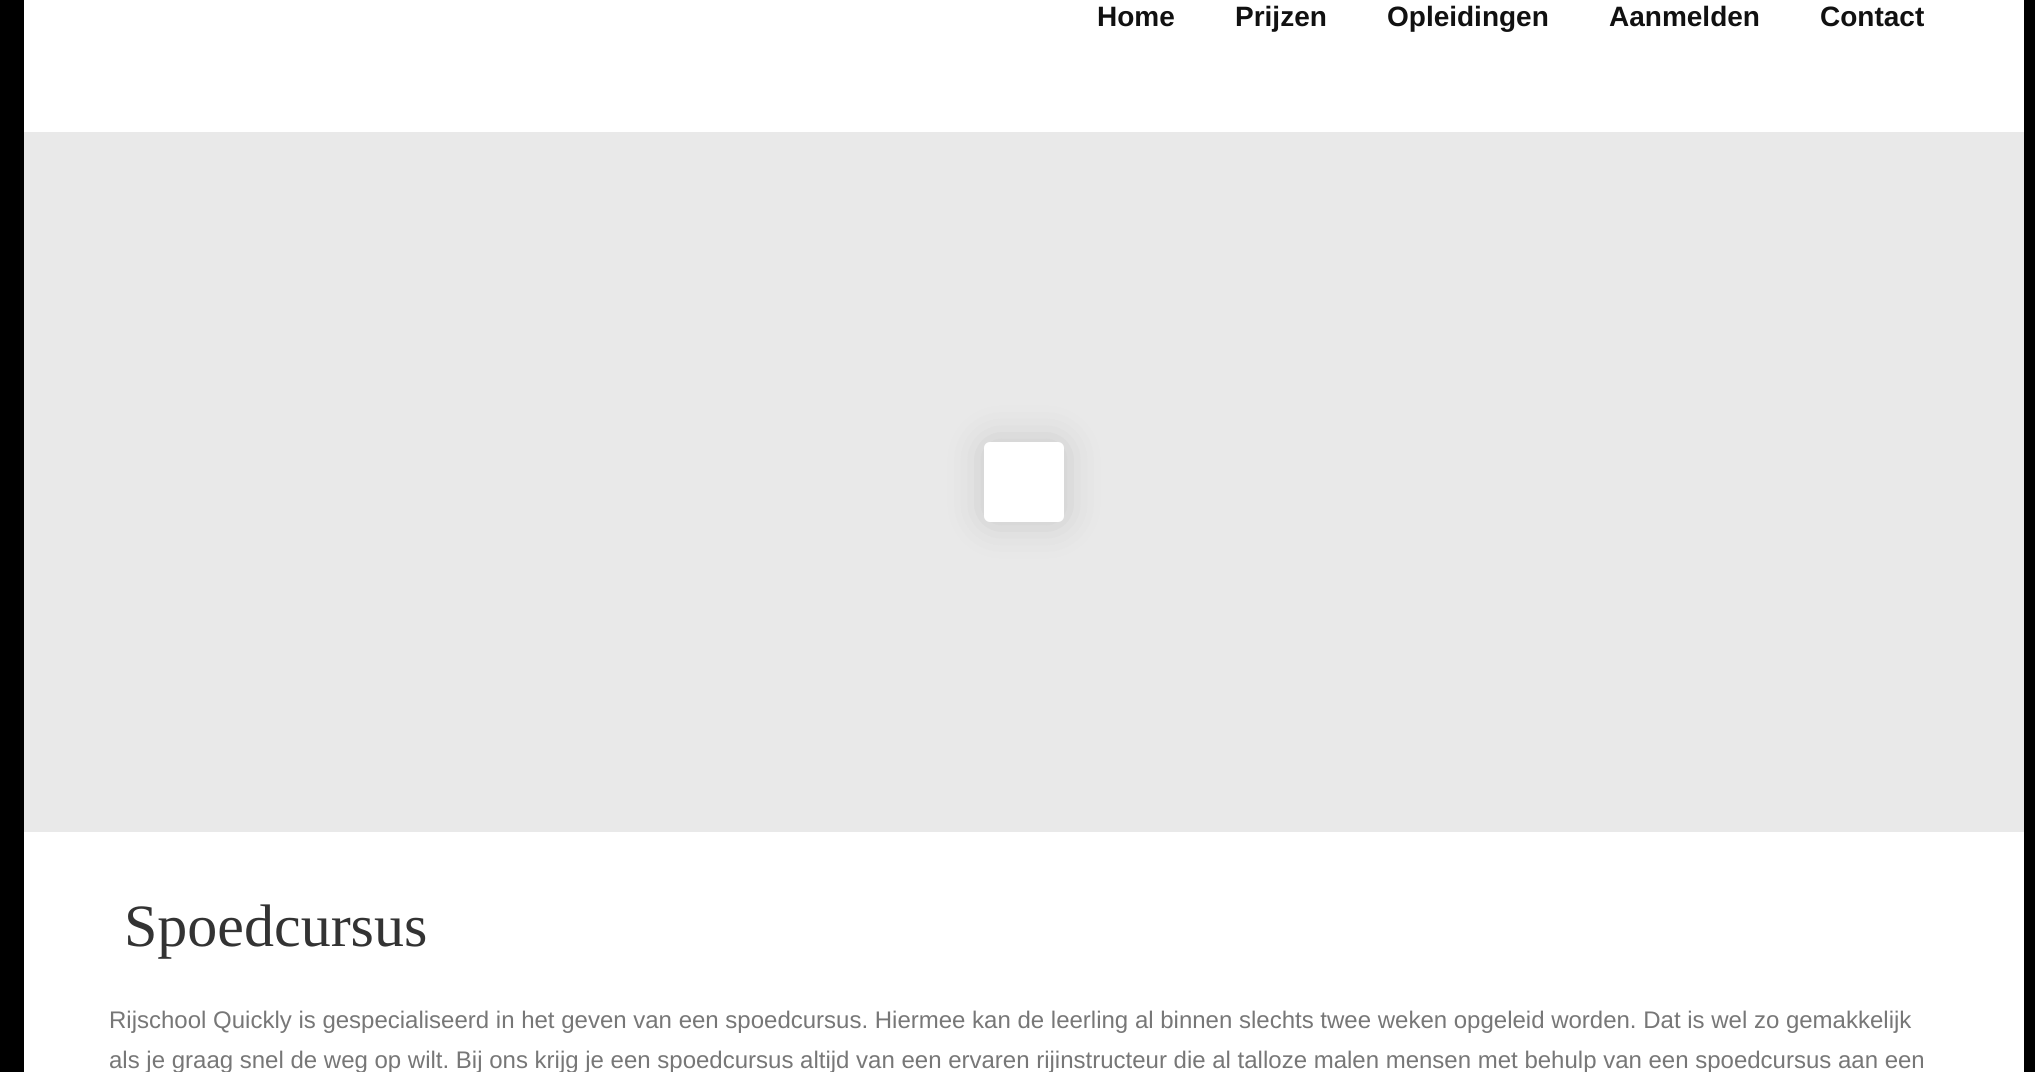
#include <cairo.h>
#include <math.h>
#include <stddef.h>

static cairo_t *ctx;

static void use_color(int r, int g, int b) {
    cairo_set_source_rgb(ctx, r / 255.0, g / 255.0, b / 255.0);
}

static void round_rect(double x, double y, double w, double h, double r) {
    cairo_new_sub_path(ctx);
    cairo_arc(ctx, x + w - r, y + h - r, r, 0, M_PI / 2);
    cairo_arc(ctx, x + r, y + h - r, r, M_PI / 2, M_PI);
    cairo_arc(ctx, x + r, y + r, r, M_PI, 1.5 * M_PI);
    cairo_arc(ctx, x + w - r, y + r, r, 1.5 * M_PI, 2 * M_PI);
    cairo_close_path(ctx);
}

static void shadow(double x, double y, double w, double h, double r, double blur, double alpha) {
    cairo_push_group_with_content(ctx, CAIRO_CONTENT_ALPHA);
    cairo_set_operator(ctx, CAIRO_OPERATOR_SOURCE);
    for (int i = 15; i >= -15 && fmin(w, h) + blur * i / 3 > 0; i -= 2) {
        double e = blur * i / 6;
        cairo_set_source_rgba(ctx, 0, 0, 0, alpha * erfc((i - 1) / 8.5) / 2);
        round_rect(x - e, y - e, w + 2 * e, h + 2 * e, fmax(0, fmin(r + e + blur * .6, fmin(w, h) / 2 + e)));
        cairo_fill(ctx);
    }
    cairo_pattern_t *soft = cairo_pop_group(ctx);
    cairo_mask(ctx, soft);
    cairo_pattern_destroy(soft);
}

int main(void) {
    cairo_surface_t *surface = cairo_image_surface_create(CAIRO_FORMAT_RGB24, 2035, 1072);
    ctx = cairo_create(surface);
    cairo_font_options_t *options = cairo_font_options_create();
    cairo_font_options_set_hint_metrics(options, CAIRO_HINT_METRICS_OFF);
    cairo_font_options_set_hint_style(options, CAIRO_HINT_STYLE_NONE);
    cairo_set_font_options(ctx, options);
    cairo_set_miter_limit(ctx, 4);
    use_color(0, 0, 0);
    cairo_paint(ctx);
    use_color(255, 255, 255);
    cairo_rectangle(ctx, 24, 0, 2000, 1072);
    cairo_fill(ctx);
    cairo_select_font_face(ctx, "Liberation Sans", CAIRO_FONT_SLANT_NORMAL, CAIRO_FONT_WEIGHT_BOLD);
    cairo_set_font_size(ctx, 28);
    use_color(17, 17, 17);
    cairo_move_to(ctx, 1097, 26);
    cairo_show_text(ctx, "Home");
    cairo_move_to(ctx, 1235, 26);
    cairo_show_text(ctx, "Prijzen");
    cairo_move_to(ctx, 1387, 26);
    cairo_show_text(ctx, "Opleidingen");
    cairo_move_to(ctx, 1609, 26);
    cairo_show_text(ctx, "Aanmelden");
    cairo_move_to(ctx, 1820, 26);
    cairo_show_text(ctx, "Contact");
    use_color(233, 233, 233);
    cairo_rectangle(ctx, 24, 132, 2000, 700);
    cairo_fill(ctx);
    use_color(0, 0, 0);
    shadow(984, 442, 80, 80, 6, 20, 0.15);
    use_color(255, 255, 255);
    round_rect(984, 442, 80, 80, 6);
    cairo_fill(ctx);
    cairo_select_font_face(ctx, "Liberation Serif", CAIRO_FONT_SLANT_NORMAL, CAIRO_FONT_WEIGHT_NORMAL);
    cairo_set_font_size(ctx, 60);
    use_color(51, 51, 51);
    cairo_move_to(ctx, 124, 946);
    cairo_show_text(ctx, "Spoedcursus");
    cairo_select_font_face(ctx, "Liberation Sans", CAIRO_FONT_SLANT_NORMAL, CAIRO_FONT_WEIGHT_NORMAL);
    cairo_set_font_size(ctx, 24);
    use_color(119, 119, 119);
    cairo_move_to(ctx, 109, 1028);
    cairo_show_text(ctx, "Rijschool Quickly is gespecialiseerd in het geven van een spoedcursus. Hiermee kan de leerling al binnen slechts twee weken opgeleid worden. Dat is wel zo gemakkelijk");
    cairo_move_to(ctx, 109, 1068);
    cairo_show_text(ctx, "als je graag snel de weg op wilt. Bij ons krijg je een spoedcursus altijd van een ervaren rijinstructeur die al talloze malen mensen met behulp van een spoedcursus aan een");
    cairo_surface_write_to_png(surface, "result.png");
    cairo_font_options_destroy(options);
    cairo_destroy(ctx);
    cairo_surface_destroy(surface);
    return 0;
}
